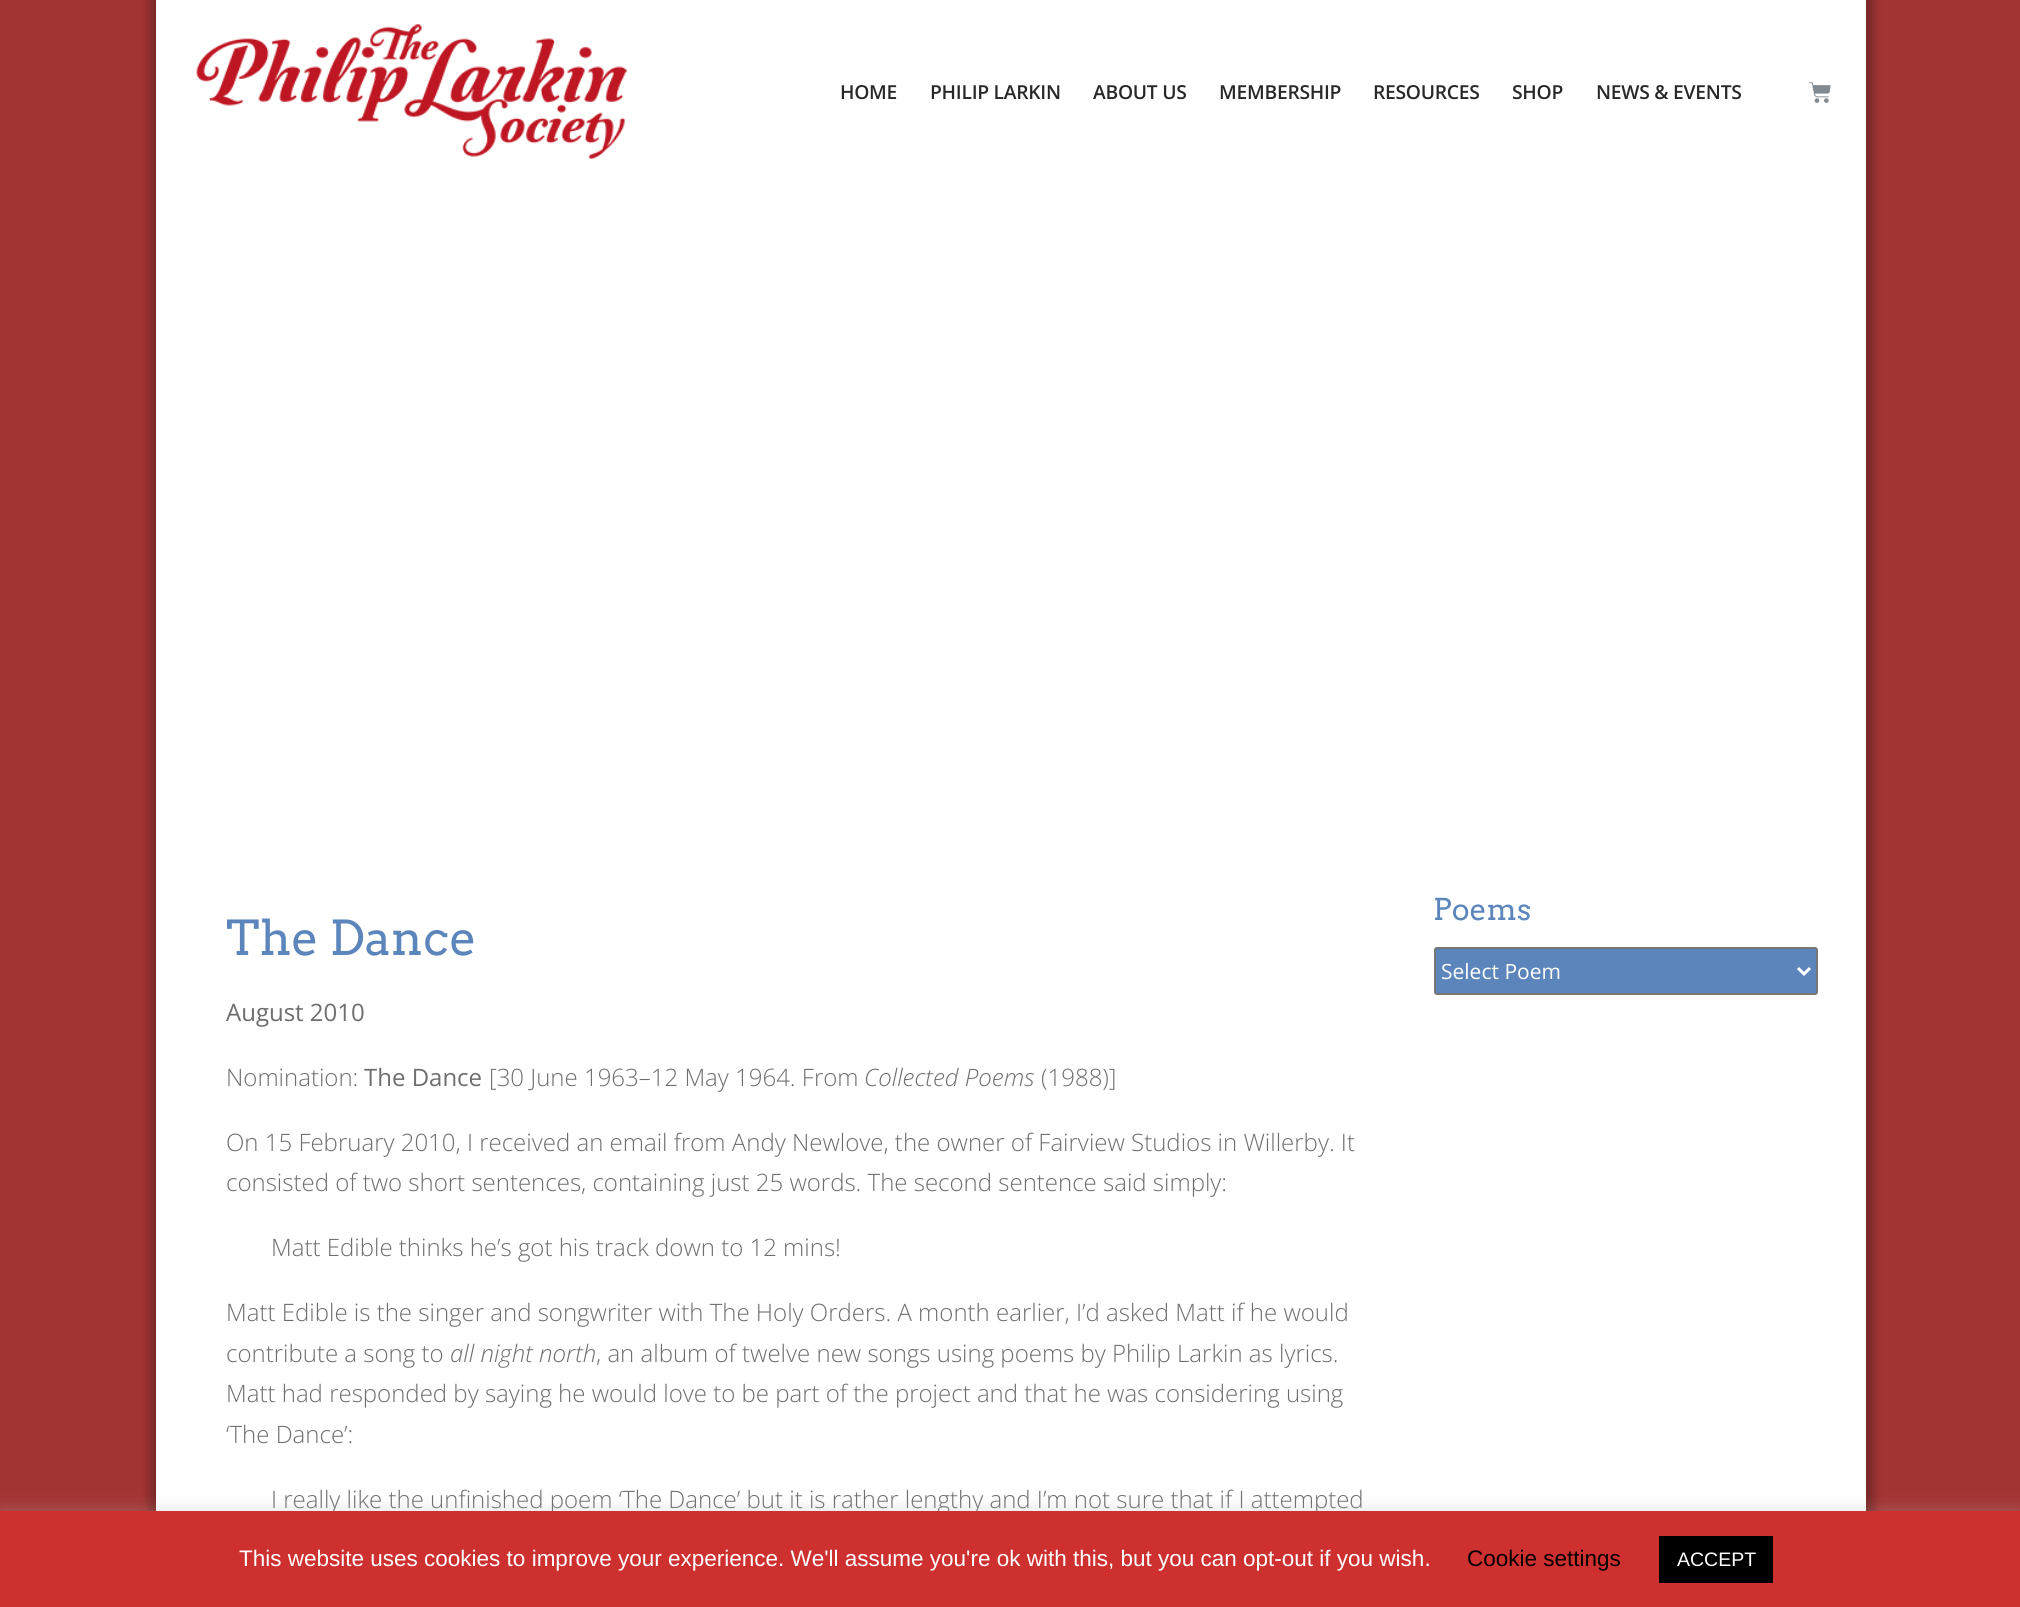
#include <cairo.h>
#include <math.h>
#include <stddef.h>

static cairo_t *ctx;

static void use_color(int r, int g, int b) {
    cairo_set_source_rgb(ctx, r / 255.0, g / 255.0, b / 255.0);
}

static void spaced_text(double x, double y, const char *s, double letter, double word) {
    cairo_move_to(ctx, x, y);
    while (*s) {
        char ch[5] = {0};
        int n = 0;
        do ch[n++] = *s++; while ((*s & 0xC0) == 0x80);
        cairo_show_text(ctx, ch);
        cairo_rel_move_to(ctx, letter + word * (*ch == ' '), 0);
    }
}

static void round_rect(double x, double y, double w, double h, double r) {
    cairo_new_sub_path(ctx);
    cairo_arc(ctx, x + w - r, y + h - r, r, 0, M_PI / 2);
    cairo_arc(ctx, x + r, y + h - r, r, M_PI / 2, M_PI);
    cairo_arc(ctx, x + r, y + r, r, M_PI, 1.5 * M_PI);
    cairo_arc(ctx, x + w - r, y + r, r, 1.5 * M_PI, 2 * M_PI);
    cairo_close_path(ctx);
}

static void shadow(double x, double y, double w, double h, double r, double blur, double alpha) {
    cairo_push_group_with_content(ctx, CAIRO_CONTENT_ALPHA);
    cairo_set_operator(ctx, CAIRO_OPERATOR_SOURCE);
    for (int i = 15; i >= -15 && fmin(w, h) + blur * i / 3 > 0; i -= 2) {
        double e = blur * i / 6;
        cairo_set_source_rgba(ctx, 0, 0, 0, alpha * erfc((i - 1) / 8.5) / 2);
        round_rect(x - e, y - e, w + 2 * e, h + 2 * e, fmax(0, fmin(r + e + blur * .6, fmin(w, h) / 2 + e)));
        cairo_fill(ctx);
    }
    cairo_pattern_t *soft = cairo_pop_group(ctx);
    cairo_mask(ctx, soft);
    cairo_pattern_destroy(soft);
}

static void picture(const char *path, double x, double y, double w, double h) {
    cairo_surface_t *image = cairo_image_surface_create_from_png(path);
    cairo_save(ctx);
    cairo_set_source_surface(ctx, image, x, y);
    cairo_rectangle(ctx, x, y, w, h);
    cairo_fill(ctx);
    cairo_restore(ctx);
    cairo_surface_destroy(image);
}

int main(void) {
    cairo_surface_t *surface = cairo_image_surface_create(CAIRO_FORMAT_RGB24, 2020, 1607);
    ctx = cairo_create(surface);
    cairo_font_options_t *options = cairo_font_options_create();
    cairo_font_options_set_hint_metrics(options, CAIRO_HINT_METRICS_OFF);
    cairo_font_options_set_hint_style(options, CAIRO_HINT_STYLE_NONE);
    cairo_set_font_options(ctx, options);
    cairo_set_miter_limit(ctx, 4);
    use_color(163, 52, 52);
    cairo_paint(ctx);
    use_color(0, 0, 0);
    shadow(149, -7, 1725, 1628, 0, 4.5, 0.26);
    use_color(255, 255, 255);
    cairo_rectangle(ctx, 156, 0, 1710, 1511);
    cairo_fill(ctx);
    picture("img1.png", 196, 24, 431, 135);
    cairo_select_font_face(ctx, "Open Sans SemiBold", CAIRO_FONT_SLANT_NORMAL, CAIRO_FONT_WEIGHT_NORMAL);
    cairo_set_font_size(ctx, 19.25);
    use_color(40, 40, 40);
    spaced_text(840, 99, "HOME", -0.25, 0);
    spaced_text(930, 99, "PHILIP LARKIN", -0.25, 0);
    spaced_text(1093, 99, "ABOUT US", -0.25, 0);
    spaced_text(1219, 99, "MEMBERSHIP", -0.25, 0);
    spaced_text(1373, 99, "RESOURCES", -0.25, 0);
    spaced_text(1512, 99, "SHOP", -0.25, 0);
    spaced_text(1596, 99, "NEWS & EVENTS", -0.25, 0);
    picture("img2.png", 1809, 82, 22, 21);
    cairo_select_font_face(ctx, "Arvo", CAIRO_FONT_SLANT_NORMAL, CAIRO_FONT_WEIGHT_NORMAL);
    cairo_set_font_size(ctx, 48);
    use_color(92, 134, 187);
    cairo_move_to(ctx, 226, 955);
    cairo_show_text(ctx, "The Dance");
    cairo_select_font_face(ctx, "Open Sans", CAIRO_FONT_SLANT_NORMAL, CAIRO_FONT_WEIGHT_NORMAL);
    cairo_set_font_size(ctx, 24);
    use_color(110, 110, 110);
    cairo_move_to(ctx, 226, 1021);
    cairo_show_text(ctx, "August 2010");
    cairo_select_font_face(ctx, "Open Sans Light", CAIRO_FONT_SLANT_NORMAL, CAIRO_FONT_WEIGHT_NORMAL);
    cairo_move_to(ctx, 226, 1086);
    cairo_show_text(ctx, "Nomination:");
    cairo_select_font_face(ctx, "Open Sans", CAIRO_FONT_SLANT_NORMAL, CAIRO_FONT_WEIGHT_NORMAL);
    cairo_move_to(ctx, 364, 1086);
    cairo_show_text(ctx, "The Dance");
    cairo_select_font_face(ctx, "Open Sans Light", CAIRO_FONT_SLANT_NORMAL, CAIRO_FONT_WEIGHT_NORMAL);
    cairo_move_to(ctx, 489, 1086);
    cairo_show_text(ctx, "[30 June 1963–12 May 1964. From");
    cairo_select_font_face(ctx, "Open Sans Light", CAIRO_FONT_SLANT_ITALIC, CAIRO_FONT_WEIGHT_NORMAL);
    cairo_move_to(ctx, 864, 1086);
    cairo_show_text(ctx, "Collected Poems");
    cairo_select_font_face(ctx, "Open Sans Light", CAIRO_FONT_SLANT_NORMAL, CAIRO_FONT_WEIGHT_NORMAL);
    cairo_move_to(ctx, 1041, 1086);
    cairo_show_text(ctx, "(1988)]");
    cairo_move_to(ctx, 226, 1151);
    cairo_show_text(ctx, "On 15 February 2010, I received an email from Andy Newlove, the owner of Fairview Studios in Willerby. It");
    cairo_move_to(ctx, 226, 1191);
    cairo_show_text(ctx, "consisted of two short sentences, containing just 25 words. The second sentence said simply:");
    cairo_move_to(ctx, 271, 1256);
    cairo_show_text(ctx, "Matt Edible thinks he’s got his track down to 12 mins!");
    cairo_move_to(ctx, 226, 1321);
    cairo_show_text(ctx, "Matt Edible is the singer and songwriter with The Holy Orders. A month earlier, I’d asked Matt if he would");
    cairo_move_to(ctx, 226, 1362);
    cairo_show_text(ctx, "contribute a song to");
    cairo_select_font_face(ctx, "Open Sans Light", CAIRO_FONT_SLANT_ITALIC, CAIRO_FONT_WEIGHT_NORMAL);
    cairo_move_to(ctx, 450, 1362);
    cairo_show_text(ctx, "all night north");
    cairo_select_font_face(ctx, "Open Sans Light", CAIRO_FONT_SLANT_NORMAL, CAIRO_FONT_WEIGHT_NORMAL);
    cairo_move_to(ctx, 596, 1362);
    cairo_show_text(ctx, ", an album of twelve new songs using poems by Philip Larkin as lyrics.");
    cairo_move_to(ctx, 226, 1402);
    cairo_show_text(ctx, "Matt had responded by saying he would love to be part of the project and that he was considering using");
    cairo_move_to(ctx, 226, 1443);
    cairo_show_text(ctx, "‘The Dance’:");
    cairo_move_to(ctx, 271, 1508);
    cairo_show_text(ctx, "I really like the unfinished poem ‘The Dance’ but it is rather lengthy and I’m not sure that if I attempted");
    cairo_select_font_face(ctx, "Arvo", CAIRO_FONT_SLANT_NORMAL, CAIRO_FONT_WEIGHT_NORMAL);
    cairo_set_font_size(ctx, 30);
    use_color(92, 134, 187);
    cairo_move_to(ctx, 1433, 920);
    cairo_show_text(ctx, "Poems");
    round_rect(1435, 948, 382, 46, 2);
    cairo_fill_preserve(ctx);
    use_color(118, 118, 118);
    cairo_stroke(ctx);
    cairo_new_path(ctx);
    cairo_move_to(ctx, 1798, 968);
    cairo_line_to(ctx, 1804, 974);
    cairo_line_to(ctx, 1810, 968);
    use_color(253, 254, 254);
    cairo_set_line_width(ctx, 3);
    cairo_stroke(ctx);
    cairo_select_font_face(ctx, "Open Sans", CAIRO_FONT_SLANT_NORMAL, CAIRO_FONT_WEIGHT_NORMAL);
    cairo_set_font_size(ctx, 21);
    cairo_move_to(ctx, 1441, 979);
    cairo_show_text(ctx, "Select Poem");
    use_color(172, 171, 171);
    shadow(0, 1509, 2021, 98, 0, 7.5, 0.3);
    use_color(206, 47, 47);
    cairo_rectangle(ctx, 0, 1511, 2020, 96);
    cairo_fill(ctx);
    cairo_select_font_face(ctx, "Liberation Sans", CAIRO_FONT_SLANT_NORMAL, CAIRO_FONT_WEIGHT_NORMAL);
    cairo_set_font_size(ctx, 22.5);
    use_color(253, 254, 254);
    cairo_move_to(ctx, 239, 1566);
    cairo_show_text(ctx, "This website uses cookies to improve your experience. We'll assume you're ok with this, but you can opt-out if you wish.");
    use_color(0, 0, 0);
    cairo_move_to(ctx, 1467, 1566);
    cairo_show_text(ctx, "Cookie settings");
    cairo_rectangle(ctx, 1659, 1536, 114, 47);
    cairo_fill(ctx);
    cairo_set_font_size(ctx, 19.5);
    use_color(253, 254, 254);
    cairo_move_to(ctx, 1677, 1566);
    cairo_show_text(ctx, "ACCEPT");
    cairo_surface_write_to_png(surface, "result.png");
    cairo_font_options_destroy(options);
    cairo_destroy(ctx);
    cairo_surface_destroy(surface);
    return 0;
}
